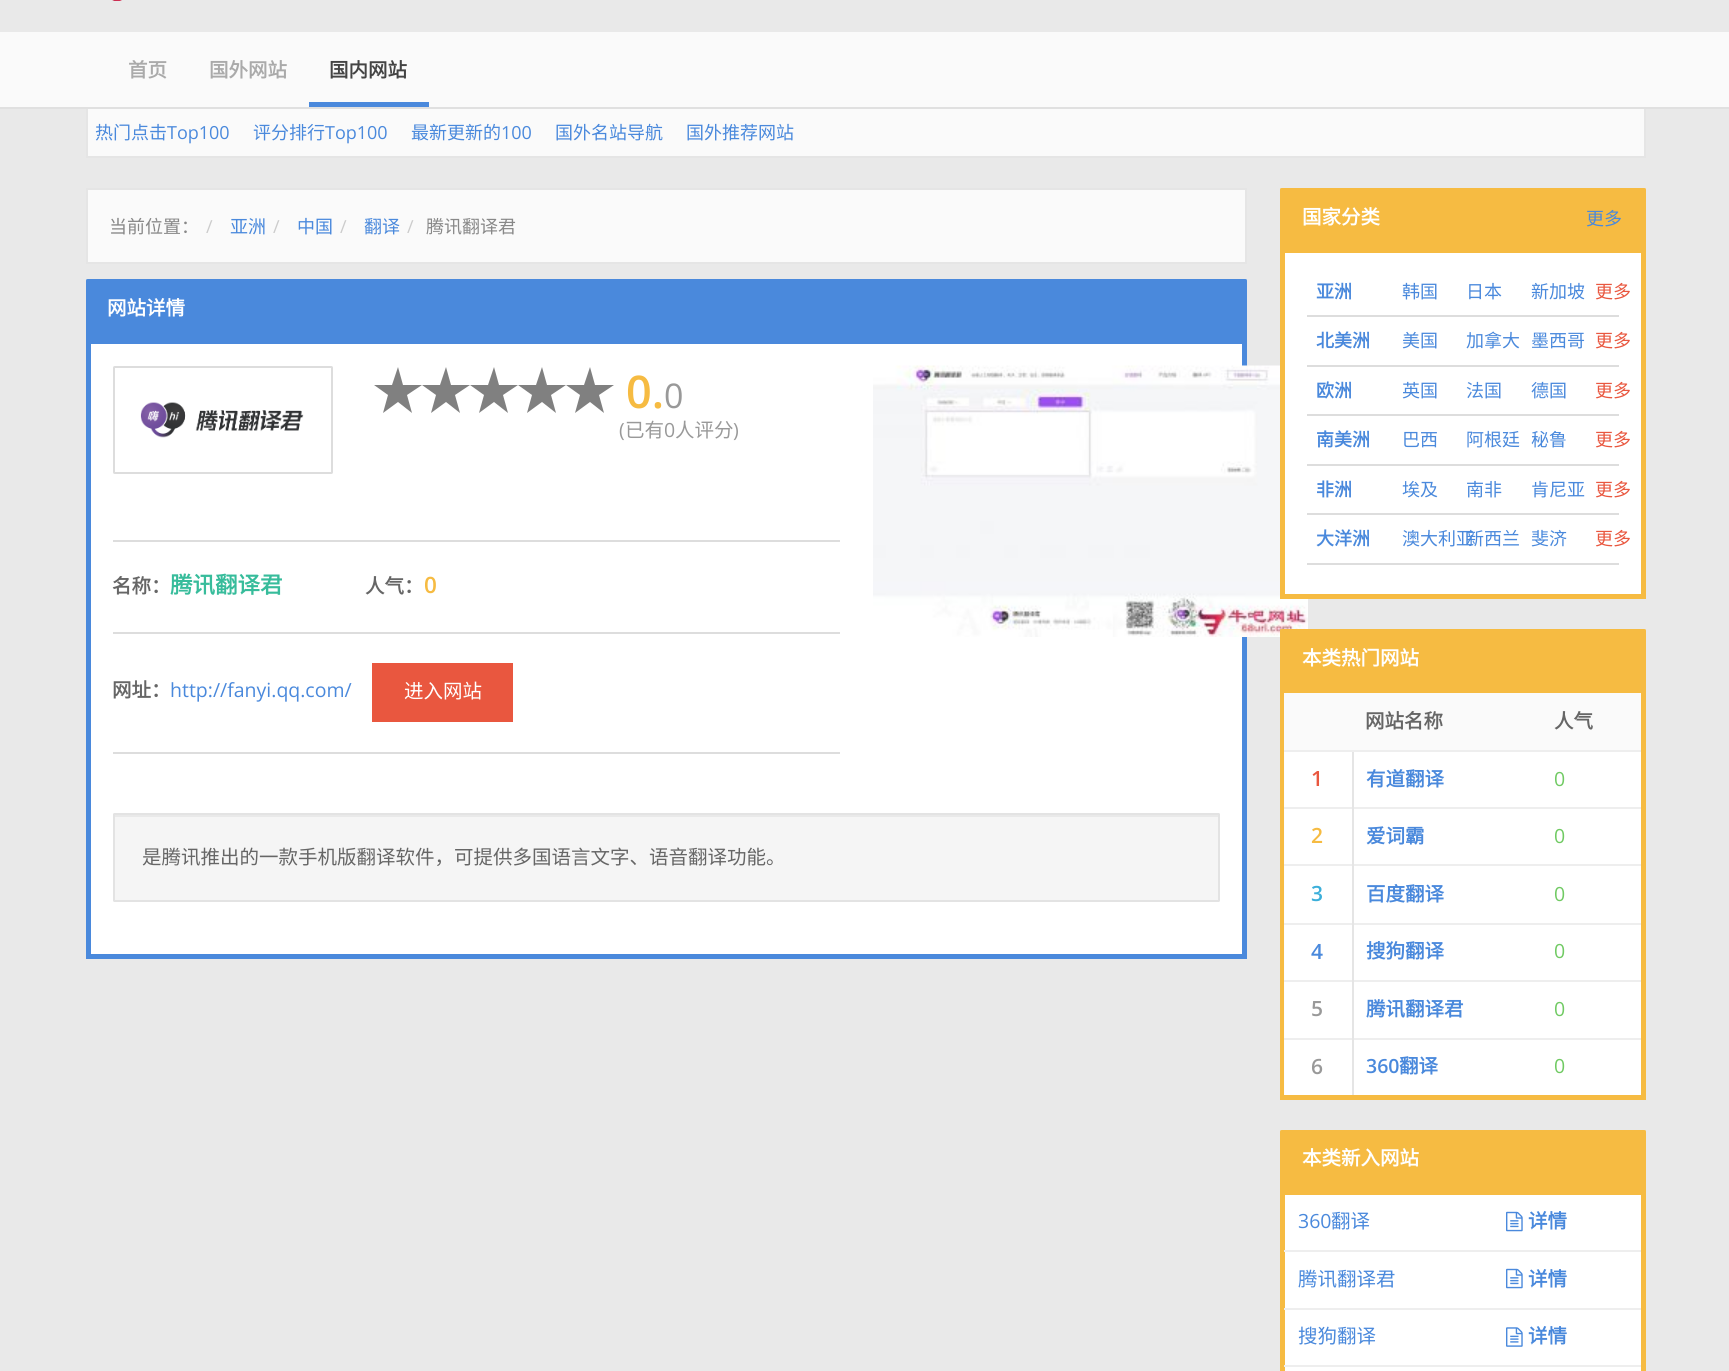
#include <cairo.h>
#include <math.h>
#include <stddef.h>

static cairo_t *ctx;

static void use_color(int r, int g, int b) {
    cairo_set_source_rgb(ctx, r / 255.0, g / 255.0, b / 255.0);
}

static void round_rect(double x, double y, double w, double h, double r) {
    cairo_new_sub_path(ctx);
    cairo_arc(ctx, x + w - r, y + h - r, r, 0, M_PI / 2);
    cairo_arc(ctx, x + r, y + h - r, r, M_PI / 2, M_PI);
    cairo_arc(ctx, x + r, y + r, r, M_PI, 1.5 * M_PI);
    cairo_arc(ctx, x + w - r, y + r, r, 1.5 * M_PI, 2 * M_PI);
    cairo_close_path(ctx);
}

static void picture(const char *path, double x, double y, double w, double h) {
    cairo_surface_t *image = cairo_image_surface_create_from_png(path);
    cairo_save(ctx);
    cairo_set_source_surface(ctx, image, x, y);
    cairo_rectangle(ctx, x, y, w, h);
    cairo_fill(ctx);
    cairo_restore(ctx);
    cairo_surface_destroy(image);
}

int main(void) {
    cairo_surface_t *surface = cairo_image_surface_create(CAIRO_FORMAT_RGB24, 1729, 1371);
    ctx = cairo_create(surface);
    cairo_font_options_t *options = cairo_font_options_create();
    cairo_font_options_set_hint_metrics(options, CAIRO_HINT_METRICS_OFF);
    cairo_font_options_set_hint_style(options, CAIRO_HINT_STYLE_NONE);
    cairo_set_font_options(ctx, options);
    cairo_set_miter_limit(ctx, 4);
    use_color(233, 233, 233);
    cairo_paint(ctx);
    picture("img1.png", 112, 0, 10, 1);
    use_color(250, 250, 250);
    cairo_rectangle(ctx, 0, 32, 1729, 75);
    cairo_fill(ctx);
    use_color(229, 229, 229);
    cairo_rectangle(ctx, 1644, 108, 2, 50);
    cairo_fill(ctx);
    cairo_rectangle(ctx, 86, 156, 1560, 2);
    cairo_fill(ctx);
    cairo_rectangle(ctx, 86, 108, 2, 50);
    cairo_fill(ctx);
    use_color(224, 224, 224);
    cairo_rectangle(ctx, 0, 107, 1729, 2);
    cairo_fill(ctx);
    cairo_select_font_face(ctx, "Noto Sans CJK SC", CAIRO_FONT_SLANT_NORMAL, CAIRO_FONT_WEIGHT_BOLD);
    cairo_set_font_size(ctx, 19.5);
    use_color(170, 170, 170);
    cairo_move_to(ctx, 128, 77);
    cairo_show_text(ctx, "首页");
    cairo_move_to(ctx, 209, 77);
    cairo_show_text(ctx, "国外网站");
    use_color(74, 137, 220);
    cairo_rectangle(ctx, 309, 102, 120, 5);
    cairo_fill(ctx);
    use_color(68, 68, 68);
    cairo_move_to(ctx, 329, 77);
    cairo_show_text(ctx, "国内网站");
    use_color(250, 250, 250);
    cairo_rectangle(ctx, 88, 109, 1556, 47);
    cairo_fill(ctx);
    cairo_select_font_face(ctx, "Noto Sans CJK SC", CAIRO_FONT_SLANT_NORMAL, CAIRO_FONT_WEIGHT_NORMAL);
    cairo_set_font_size(ctx, 18);
    use_color(74, 137, 220);
    cairo_move_to(ctx, 95, 139);
    cairo_show_text(ctx, "热门点击");
    cairo_select_font_face(ctx, "Open Sans", CAIRO_FONT_SLANT_NORMAL, CAIRO_FONT_WEIGHT_NORMAL);
    cairo_move_to(ctx, 167, 139);
    cairo_show_text(ctx, "Top100");
    cairo_select_font_face(ctx, "Noto Sans CJK SC", CAIRO_FONT_SLANT_NORMAL, CAIRO_FONT_WEIGHT_NORMAL);
    cairo_move_to(ctx, 253, 139);
    cairo_show_text(ctx, "评分排行");
    cairo_select_font_face(ctx, "Open Sans", CAIRO_FONT_SLANT_NORMAL, CAIRO_FONT_WEIGHT_NORMAL);
    cairo_move_to(ctx, 325, 139);
    cairo_show_text(ctx, "Top100");
    cairo_select_font_face(ctx, "Noto Sans CJK SC", CAIRO_FONT_SLANT_NORMAL, CAIRO_FONT_WEIGHT_NORMAL);
    cairo_move_to(ctx, 411, 139);
    cairo_show_text(ctx, "最新更新的");
    cairo_select_font_face(ctx, "Open Sans", CAIRO_FONT_SLANT_NORMAL, CAIRO_FONT_WEIGHT_NORMAL);
    cairo_move_to(ctx, 501, 139);
    cairo_show_text(ctx, "100");
    cairo_select_font_face(ctx, "Noto Sans CJK SC", CAIRO_FONT_SLANT_NORMAL, CAIRO_FONT_WEIGHT_NORMAL);
    cairo_move_to(ctx, 555, 139);
    cairo_show_text(ctx, "国外名站导航");
    cairo_move_to(ctx, 686, 139);
    cairo_show_text(ctx, "国外推荐网站");
    use_color(250, 250, 250);
    cairo_rectangle(ctx, 87, 189, 1159, 74);
    cairo_fill_preserve(ctx);
    use_color(229, 229, 229);
    cairo_stroke(ctx);
    use_color(136, 136, 136);
    cairo_move_to(ctx, 109, 233);
    cairo_show_text(ctx, "当前位置：");
    cairo_select_font_face(ctx, "Open Sans", CAIRO_FONT_SLANT_NORMAL, CAIRO_FONT_WEIGHT_NORMAL);
    use_color(204, 204, 204);
    cairo_move_to(ctx, 206, 233);
    cairo_show_text(ctx, "/");
    cairo_select_font_face(ctx, "Noto Sans CJK SC", CAIRO_FONT_SLANT_NORMAL, CAIRO_FONT_WEIGHT_NORMAL);
    use_color(74, 137, 220);
    cairo_move_to(ctx, 230, 233);
    cairo_show_text(ctx, "亚洲");
    cairo_select_font_face(ctx, "Open Sans", CAIRO_FONT_SLANT_NORMAL, CAIRO_FONT_WEIGHT_NORMAL);
    use_color(204, 204, 204);
    cairo_move_to(ctx, 273, 233);
    cairo_show_text(ctx, "/");
    cairo_select_font_face(ctx, "Noto Sans CJK SC", CAIRO_FONT_SLANT_NORMAL, CAIRO_FONT_WEIGHT_NORMAL);
    use_color(74, 137, 220);
    cairo_move_to(ctx, 297, 233);
    cairo_show_text(ctx, "中国");
    cairo_select_font_face(ctx, "Open Sans", CAIRO_FONT_SLANT_NORMAL, CAIRO_FONT_WEIGHT_NORMAL);
    use_color(204, 204, 204);
    cairo_move_to(ctx, 340, 233);
    cairo_show_text(ctx, "/");
    cairo_select_font_face(ctx, "Noto Sans CJK SC", CAIRO_FONT_SLANT_NORMAL, CAIRO_FONT_WEIGHT_NORMAL);
    use_color(74, 137, 220);
    cairo_move_to(ctx, 364, 233);
    cairo_show_text(ctx, "翻译");
    cairo_select_font_face(ctx, "Open Sans", CAIRO_FONT_SLANT_NORMAL, CAIRO_FONT_WEIGHT_NORMAL);
    use_color(204, 204, 204);
    cairo_move_to(ctx, 407, 233);
    cairo_show_text(ctx, "/");
    cairo_select_font_face(ctx, "Noto Sans CJK SC", CAIRO_FONT_SLANT_NORMAL, CAIRO_FONT_WEIGHT_NORMAL);
    use_color(136, 136, 136);
    cairo_move_to(ctx, 426, 233);
    cairo_show_text(ctx, "腾讯翻译君");
    use_color(255, 255, 255);
    round_rect(86, 279, 1161, 680, 3);
    cairo_fill(ctx);
    use_color(74, 137, 220);
    cairo_new_path(ctx);
    cairo_move_to(ctx, 87.5, 280);
    cairo_line_to(ctx, 1245.5, 280);
    cairo_curve_to(ctx, 1246, 280, 1246, 280, 1246, 280.5);
    cairo_line_to(ctx, 1246, 338);
    cairo_line_to(ctx, 87, 338);
    cairo_line_to(ctx, 87, 280.5);
    cairo_curve_to(ctx, 87, 280, 87, 280, 87.5, 280);
    cairo_close_path(ctx);
    cairo_fill_preserve(ctx);
    cairo_stroke(ctx);
    cairo_select_font_face(ctx, "Noto Sans CJK SC", CAIRO_FONT_SLANT_NORMAL, CAIRO_FONT_WEIGHT_BOLD);
    cairo_set_font_size(ctx, 19.5);
    use_color(255, 255, 255);
    cairo_move_to(ctx, 107, 315);
    cairo_show_text(ctx, "网站详情");
    cairo_rectangle(ctx, 88.5, 341.5, 1156, 615);
    use_color(74, 137, 220);
    cairo_set_line_width(ctx, 5);
    cairo_stroke(ctx);
    round_rect(114, 367, 218, 106, 0.5);
    use_color(221, 221, 221);
    cairo_set_line_width(ctx, 2);
    cairo_stroke(ctx);
    picture("img2.png", 140, 402, 164, 36);
    use_color(128, 128, 128);
    cairo_new_path(ctx);
    cairo_move_to(ctx, 398, 367);
    cairo_line_to(ctx, 403, 385);
    cairo_line_to(ctx, 422, 385);
    cairo_line_to(ctx, 407, 395);
    cairo_line_to(ctx, 412, 413);
    cairo_line_to(ctx, 398, 402);
    cairo_line_to(ctx, 383, 413);
    cairo_line_to(ctx, 388, 395);
    cairo_line_to(ctx, 374, 385);
    cairo_line_to(ctx, 392, 385);
    cairo_close_path(ctx);
    cairo_fill(ctx);
    cairo_new_path(ctx);
    cairo_move_to(ctx, 446, 367);
    cairo_line_to(ctx, 451, 385);
    cairo_line_to(ctx, 470, 385);
    cairo_line_to(ctx, 455, 395);
    cairo_line_to(ctx, 460, 413);
    cairo_line_to(ctx, 446, 402);
    cairo_line_to(ctx, 431, 413);
    cairo_line_to(ctx, 436, 395);
    cairo_line_to(ctx, 422, 385);
    cairo_line_to(ctx, 440, 385);
    cairo_close_path(ctx);
    cairo_fill(ctx);
    cairo_new_path(ctx);
    cairo_move_to(ctx, 494, 367);
    cairo_line_to(ctx, 499, 385);
    cairo_line_to(ctx, 518, 385);
    cairo_line_to(ctx, 503, 395);
    cairo_line_to(ctx, 508, 413);
    cairo_line_to(ctx, 494, 402);
    cairo_line_to(ctx, 479, 413);
    cairo_line_to(ctx, 484, 395);
    cairo_line_to(ctx, 470, 385);
    cairo_line_to(ctx, 488, 385);
    cairo_close_path(ctx);
    cairo_fill(ctx);
    cairo_new_path(ctx);
    cairo_move_to(ctx, 542, 367);
    cairo_line_to(ctx, 547, 385);
    cairo_line_to(ctx, 566, 385);
    cairo_line_to(ctx, 551, 395);
    cairo_line_to(ctx, 556, 413);
    cairo_line_to(ctx, 542, 402);
    cairo_line_to(ctx, 527, 413);
    cairo_line_to(ctx, 532, 395);
    cairo_line_to(ctx, 518, 385);
    cairo_line_to(ctx, 536, 385);
    cairo_close_path(ctx);
    cairo_fill(ctx);
    cairo_new_path(ctx);
    cairo_move_to(ctx, 590, 367);
    cairo_line_to(ctx, 595, 385);
    cairo_line_to(ctx, 614, 385);
    cairo_line_to(ctx, 599, 395);
    cairo_line_to(ctx, 604, 413);
    cairo_line_to(ctx, 590, 402);
    cairo_line_to(ctx, 575, 413);
    cairo_line_to(ctx, 580, 395);
    cairo_line_to(ctx, 566, 385);
    cairo_line_to(ctx, 584, 385);
    cairo_close_path(ctx);
    cairo_fill(ctx);
    cairo_select_font_face(ctx, "Open Sans SemiBold", CAIRO_FONT_SLANT_NORMAL, CAIRO_FONT_WEIGHT_NORMAL);
    cairo_set_font_size(ctx, 45);
    use_color(246, 187, 66);
    cairo_move_to(ctx, 626, 408);
    cairo_show_text(ctx, "0.");
    cairo_select_font_face(ctx, "Open Sans", CAIRO_FONT_SLANT_NORMAL, CAIRO_FONT_WEIGHT_NORMAL);
    cairo_set_font_size(ctx, 34);
    use_color(153, 153, 153);
    cairo_move_to(ctx, 664, 408);
    cairo_show_text(ctx, "0");
    cairo_set_font_size(ctx, 19.5);
    cairo_move_to(ctx, 619, 437);
    cairo_show_text(ctx, "(");
    cairo_select_font_face(ctx, "Noto Sans CJK SC", CAIRO_FONT_SLANT_NORMAL, CAIRO_FONT_WEIGHT_NORMAL);
    cairo_move_to(ctx, 625, 437);
    cairo_show_text(ctx, "已有");
    cairo_select_font_face(ctx, "Open Sans", CAIRO_FONT_SLANT_NORMAL, CAIRO_FONT_WEIGHT_NORMAL);
    cairo_move_to(ctx, 664, 437);
    cairo_show_text(ctx, "0");
    cairo_select_font_face(ctx, "Noto Sans CJK SC", CAIRO_FONT_SLANT_NORMAL, CAIRO_FONT_WEIGHT_NORMAL);
    cairo_move_to(ctx, 675, 437);
    cairo_show_text(ctx, "人评分");
    cairo_select_font_face(ctx, "Open Sans", CAIRO_FONT_SLANT_NORMAL, CAIRO_FONT_WEIGHT_NORMAL);
    cairo_move_to(ctx, 733, 437);
    cairo_show_text(ctx, ")");
    use_color(221, 221, 221);
    cairo_rectangle(ctx, 113, 540, 727, 2);
    cairo_fill(ctx);
    cairo_select_font_face(ctx, "Noto Sans CJK SC", CAIRO_FONT_SLANT_NORMAL, CAIRO_FONT_WEIGHT_BOLD);
    use_color(102, 102, 102);
    cairo_move_to(ctx, 112, 593);
    cairo_show_text(ctx, "名称：");
    cairo_set_font_size(ctx, 22.5);
    use_color(55, 188, 155);
    cairo_move_to(ctx, 170, 593);
    cairo_show_text(ctx, "腾讯翻译君");
    cairo_set_font_size(ctx, 19.5);
    use_color(102, 102, 102);
    cairo_move_to(ctx, 365, 593);
    cairo_show_text(ctx, "人气：");
    cairo_select_font_face(ctx, "Open Sans SemiBold", CAIRO_FONT_SLANT_NORMAL, CAIRO_FONT_WEIGHT_NORMAL);
    cairo_set_font_size(ctx, 22.5);
    use_color(246, 187, 66);
    cairo_move_to(ctx, 424, 593);
    cairo_show_text(ctx, "0");
    use_color(221, 221, 221);
    cairo_rectangle(ctx, 113, 632, 727, 2);
    cairo_fill(ctx);
    cairo_select_font_face(ctx, "Noto Sans CJK SC", CAIRO_FONT_SLANT_NORMAL, CAIRO_FONT_WEIGHT_BOLD);
    cairo_set_font_size(ctx, 19.5);
    use_color(102, 102, 102);
    cairo_move_to(ctx, 112, 697);
    cairo_show_text(ctx, "网址：");
    cairo_select_font_face(ctx, "Open Sans", CAIRO_FONT_SLANT_NORMAL, CAIRO_FONT_WEIGHT_NORMAL);
    use_color(74, 137, 220);
    cairo_move_to(ctx, 170, 697);
    cairo_show_text(ctx, "http://fanyi.qq.com/");
    use_color(233, 87, 63);
    cairo_rectangle(ctx, 372, 663, 141, 59);
    cairo_fill(ctx);
    cairo_select_font_face(ctx, "Noto Sans CJK SC", CAIRO_FONT_SLANT_NORMAL, CAIRO_FONT_WEIGHT_NORMAL);
    use_color(255, 255, 255);
    cairo_move_to(ctx, 404, 698);
    cairo_show_text(ctx, "进入网站");
    use_color(221, 221, 221);
    cairo_rectangle(ctx, 113, 752, 727, 2);
    cairo_fill(ctx);
    picture("img3.png", 873, 365, 435, 272);
    use_color(245, 245, 245);
    round_rect(113, 813, 1107, 89, 1.5);
    cairo_fill(ctx);
    use_color(233, 233, 233);
    cairo_rectangle(ctx, 114, 815, 1104, 2);
    cairo_fill(ctx);
    round_rect(114, 814, 1105, 87, 0.5);
    use_color(227, 227, 227);
    cairo_stroke(ctx);
    use_color(102, 102, 102);
    cairo_move_to(ctx, 142, 864);
    cairo_show_text(ctx, "是腾讯推出的一款手机版翻译软件，可提供多国语言文字、语音翻译功能。");
    use_color(255, 255, 255);
    round_rect(1280, 188, 366, 411, 3);
    cairo_fill(ctx);
    use_color(246, 187, 66);
    cairo_new_path(ctx);
    cairo_move_to(ctx, 1281.5, 189);
    cairo_line_to(ctx, 1644.5, 189);
    cairo_curve_to(ctx, 1645, 189, 1645, 189, 1645, 189.5);
    cairo_line_to(ctx, 1645, 247);
    cairo_line_to(ctx, 1281, 247);
    cairo_line_to(ctx, 1281, 189.5);
    cairo_curve_to(ctx, 1281, 189, 1281, 189, 1281.5, 189);
    cairo_close_path(ctx);
    cairo_fill_preserve(ctx);
    cairo_stroke(ctx);
    cairo_select_font_face(ctx, "Noto Sans CJK SC", CAIRO_FONT_SLANT_NORMAL, CAIRO_FONT_WEIGHT_BOLD);
    use_color(255, 255, 255);
    cairo_move_to(ctx, 1302, 224);
    cairo_show_text(ctx, "国家分类");
    cairo_select_font_face(ctx, "Noto Sans CJK SC", CAIRO_FONT_SLANT_NORMAL, CAIRO_FONT_WEIGHT_NORMAL);
    cairo_set_font_size(ctx, 18);
    use_color(74, 137, 220);
    cairo_move_to(ctx, 1586, 225);
    cairo_show_text(ctx, "更多");
    cairo_rectangle(ctx, 1282.5, 250.5, 361, 346);
    use_color(246, 187, 66);
    cairo_set_line_width(ctx, 5);
    cairo_stroke(ctx);
    cairo_select_font_face(ctx, "Noto Sans CJK SC", CAIRO_FONT_SLANT_NORMAL, CAIRO_FONT_WEIGHT_BOLD);
    use_color(74, 137, 220);
    cairo_move_to(ctx, 1316, 298);
    cairo_show_text(ctx, "亚洲");
    cairo_select_font_face(ctx, "Noto Sans CJK SC", CAIRO_FONT_SLANT_NORMAL, CAIRO_FONT_WEIGHT_NORMAL);
    cairo_move_to(ctx, 1402, 298);
    cairo_show_text(ctx, "韩国");
    cairo_move_to(ctx, 1466, 298);
    cairo_show_text(ctx, "日本");
    cairo_move_to(ctx, 1531, 298);
    cairo_show_text(ctx, "新加坡");
    use_color(233, 87, 63);
    cairo_move_to(ctx, 1595, 298);
    cairo_show_text(ctx, "更多");
    use_color(221, 221, 221);
    cairo_rectangle(ctx, 1307, 315, 312, 2);
    cairo_fill(ctx);
    cairo_select_font_face(ctx, "Noto Sans CJK SC", CAIRO_FONT_SLANT_NORMAL, CAIRO_FONT_WEIGHT_BOLD);
    use_color(74, 137, 220);
    cairo_move_to(ctx, 1316, 347);
    cairo_show_text(ctx, "北美洲");
    cairo_select_font_face(ctx, "Noto Sans CJK SC", CAIRO_FONT_SLANT_NORMAL, CAIRO_FONT_WEIGHT_NORMAL);
    cairo_move_to(ctx, 1402, 347);
    cairo_show_text(ctx, "美国");
    cairo_move_to(ctx, 1466, 347);
    cairo_show_text(ctx, "加拿大");
    cairo_move_to(ctx, 1531, 347);
    cairo_show_text(ctx, "墨西哥");
    use_color(233, 87, 63);
    cairo_move_to(ctx, 1595, 347);
    cairo_show_text(ctx, "更多");
    use_color(221, 221, 221);
    cairo_rectangle(ctx, 1307, 365, 312, 2);
    cairo_fill(ctx);
    cairo_select_font_face(ctx, "Noto Sans CJK SC", CAIRO_FONT_SLANT_NORMAL, CAIRO_FONT_WEIGHT_BOLD);
    use_color(74, 137, 220);
    cairo_move_to(ctx, 1316, 397);
    cairo_show_text(ctx, "欧洲");
    cairo_select_font_face(ctx, "Noto Sans CJK SC", CAIRO_FONT_SLANT_NORMAL, CAIRO_FONT_WEIGHT_NORMAL);
    cairo_move_to(ctx, 1402, 397);
    cairo_show_text(ctx, "英国");
    cairo_move_to(ctx, 1466, 397);
    cairo_show_text(ctx, "法国");
    cairo_move_to(ctx, 1531, 397);
    cairo_show_text(ctx, "德国");
    use_color(233, 87, 63);
    cairo_move_to(ctx, 1595, 397);
    cairo_show_text(ctx, "更多");
    use_color(221, 221, 221);
    cairo_rectangle(ctx, 1307, 414, 312, 2);
    cairo_fill(ctx);
    cairo_select_font_face(ctx, "Noto Sans CJK SC", CAIRO_FONT_SLANT_NORMAL, CAIRO_FONT_WEIGHT_BOLD);
    use_color(74, 137, 220);
    cairo_move_to(ctx, 1316, 446);
    cairo_show_text(ctx, "南美洲");
    cairo_select_font_face(ctx, "Noto Sans CJK SC", CAIRO_FONT_SLANT_NORMAL, CAIRO_FONT_WEIGHT_NORMAL);
    cairo_move_to(ctx, 1402, 446);
    cairo_show_text(ctx, "巴西");
    cairo_move_to(ctx, 1466, 446);
    cairo_show_text(ctx, "阿根廷");
    cairo_move_to(ctx, 1531, 446);
    cairo_show_text(ctx, "秘鲁");
    use_color(233, 87, 63);
    cairo_move_to(ctx, 1595, 446);
    cairo_show_text(ctx, "更多");
    use_color(221, 221, 221);
    cairo_rectangle(ctx, 1307, 464, 312, 2);
    cairo_fill(ctx);
    cairo_select_font_face(ctx, "Noto Sans CJK SC", CAIRO_FONT_SLANT_NORMAL, CAIRO_FONT_WEIGHT_BOLD);
    use_color(74, 137, 220);
    cairo_move_to(ctx, 1316, 496);
    cairo_show_text(ctx, "非洲");
    cairo_select_font_face(ctx, "Noto Sans CJK SC", CAIRO_FONT_SLANT_NORMAL, CAIRO_FONT_WEIGHT_NORMAL);
    cairo_move_to(ctx, 1402, 496);
    cairo_show_text(ctx, "埃及");
    cairo_move_to(ctx, 1466, 496);
    cairo_show_text(ctx, "南非");
    cairo_move_to(ctx, 1531, 496);
    cairo_show_text(ctx, "肯尼亚");
    use_color(233, 87, 63);
    cairo_move_to(ctx, 1595, 496);
    cairo_show_text(ctx, "更多");
    use_color(221, 221, 221);
    cairo_rectangle(ctx, 1307, 513, 312, 2);
    cairo_fill(ctx);
    cairo_select_font_face(ctx, "Noto Sans CJK SC", CAIRO_FONT_SLANT_NORMAL, CAIRO_FONT_WEIGHT_BOLD);
    use_color(74, 137, 220);
    cairo_move_to(ctx, 1316, 545);
    cairo_show_text(ctx, "大洋洲");
    cairo_select_font_face(ctx, "Noto Sans CJK SC", CAIRO_FONT_SLANT_NORMAL, CAIRO_FONT_WEIGHT_NORMAL);
    cairo_move_to(ctx, 1402, 545);
    cairo_show_text(ctx, "澳大利亚");
    cairo_move_to(ctx, 1466, 545);
    cairo_show_text(ctx, "新西兰");
    cairo_move_to(ctx, 1531, 545);
    cairo_show_text(ctx, "斐济");
    use_color(233, 87, 63);
    cairo_move_to(ctx, 1595, 545);
    cairo_show_text(ctx, "更多");
    use_color(221, 221, 221);
    cairo_rectangle(ctx, 1307, 563, 312, 2);
    cairo_fill(ctx);
    use_color(255, 255, 255);
    round_rect(1280, 629, 366, 471, 3);
    cairo_fill(ctx);
    use_color(246, 187, 66);
    cairo_new_path(ctx);
    cairo_move_to(ctx, 1281.5, 630);
    cairo_line_to(ctx, 1644.5, 630);
    cairo_curve_to(ctx, 1645, 630, 1645, 630, 1645, 630.5);
    cairo_line_to(ctx, 1645, 688);
    cairo_line_to(ctx, 1281, 688);
    cairo_line_to(ctx, 1281, 630.5);
    cairo_curve_to(ctx, 1281, 630, 1281, 630, 1281.5, 630);
    cairo_close_path(ctx);
    cairo_fill_preserve(ctx);
    cairo_set_line_width(ctx, 2);
    cairo_stroke(ctx);
    cairo_select_font_face(ctx, "Noto Sans CJK SC", CAIRO_FONT_SLANT_NORMAL, CAIRO_FONT_WEIGHT_BOLD);
    cairo_set_font_size(ctx, 19.5);
    use_color(255, 255, 255);
    cairo_move_to(ctx, 1302, 665);
    cairo_show_text(ctx, "本类热门网站");
    cairo_rectangle(ctx, 1282.5, 691.5, 361, 406);
    use_color(246, 187, 66);
    cairo_set_line_width(ctx, 5);
    cairo_stroke(ctx);
    use_color(250, 250, 250);
    cairo_rectangle(ctx, 1284, 693, 357, 57);
    cairo_fill(ctx);
    use_color(102, 102, 102);
    cairo_move_to(ctx, 1365, 728);
    cairo_show_text(ctx, "网站名称");
    use_color(238, 238, 238);
    cairo_rectangle(ctx, 1284, 807, 357, 2);
    cairo_fill(ctx);
    cairo_rectangle(ctx, 1284, 864, 357, 2);
    cairo_fill(ctx);
    cairo_rectangle(ctx, 1284, 923, 357, 2);
    cairo_fill(ctx);
    cairo_rectangle(ctx, 1284, 980, 357, 2);
    cairo_fill(ctx);
    cairo_rectangle(ctx, 1284, 1038, 357, 2);
    cairo_fill(ctx);
    use_color(229, 229, 229);
    cairo_rectangle(ctx, 1352, 1038, 2, 57);
    cairo_fill(ctx);
    cairo_rectangle(ctx, 1352, 980, 2, 60);
    cairo_fill(ctx);
    cairo_rectangle(ctx, 1352, 923, 2, 58);
    cairo_fill(ctx);
    cairo_rectangle(ctx, 1352, 864, 2, 60);
    cairo_fill(ctx);
    cairo_rectangle(ctx, 1352, 750, 2, 116);
    cairo_fill(ctx);
    use_color(238, 238, 238);
    cairo_rectangle(ctx, 1284, 750, 357, 2);
    cairo_fill(ctx);
    use_color(102, 102, 102);
    cairo_move_to(ctx, 1554, 728);
    cairo_show_text(ctx, "人气");
    use_color(253, 253, 253);
    cairo_rectangle(ctx, 1284, 752, 1, 55);
    cairo_fill(ctx);
    cairo_select_font_face(ctx, "Open Sans SemiBold", CAIRO_FONT_SLANT_NORMAL, CAIRO_FONT_WEIGHT_NORMAL);
    cairo_set_font_size(ctx, 21);
    use_color(233, 87, 63);
    cairo_move_to(ctx, 1311, 786);
    cairo_show_text(ctx, "1");
    cairo_select_font_face(ctx, "Noto Sans CJK SC", CAIRO_FONT_SLANT_NORMAL, CAIRO_FONT_WEIGHT_BOLD);
    cairo_set_font_size(ctx, 19.5);
    use_color(74, 137, 220);
    cairo_move_to(ctx, 1366, 786);
    cairo_show_text(ctx, "有道翻译");
    cairo_select_font_face(ctx, "Open Sans", CAIRO_FONT_SLANT_NORMAL, CAIRO_FONT_WEIGHT_NORMAL);
    use_color(112, 202, 99);
    cairo_move_to(ctx, 1554, 786);
    cairo_show_text(ctx, "0");
    use_color(253, 253, 253);
    cairo_rectangle(ctx, 1284, 809, 1, 55);
    cairo_fill(ctx);
    cairo_select_font_face(ctx, "Open Sans SemiBold", CAIRO_FONT_SLANT_NORMAL, CAIRO_FONT_WEIGHT_NORMAL);
    cairo_set_font_size(ctx, 21);
    use_color(246, 187, 66);
    cairo_move_to(ctx, 1311, 843);
    cairo_show_text(ctx, "2");
    cairo_select_font_face(ctx, "Noto Sans CJK SC", CAIRO_FONT_SLANT_NORMAL, CAIRO_FONT_WEIGHT_BOLD);
    cairo_set_font_size(ctx, 19.5);
    use_color(74, 137, 220);
    cairo_move_to(ctx, 1366, 843);
    cairo_show_text(ctx, "爱词霸");
    cairo_select_font_face(ctx, "Open Sans", CAIRO_FONT_SLANT_NORMAL, CAIRO_FONT_WEIGHT_NORMAL);
    use_color(112, 202, 99);
    cairo_move_to(ctx, 1554, 843);
    cairo_show_text(ctx, "0");
    use_color(253, 253, 253);
    cairo_rectangle(ctx, 1284, 866, 1, 57);
    cairo_fill(ctx);
    cairo_select_font_face(ctx, "Open Sans SemiBold", CAIRO_FONT_SLANT_NORMAL, CAIRO_FONT_WEIGHT_NORMAL);
    cairo_set_font_size(ctx, 21);
    use_color(59, 175, 218);
    cairo_move_to(ctx, 1311, 901);
    cairo_show_text(ctx, "3");
    cairo_select_font_face(ctx, "Noto Sans CJK SC", CAIRO_FONT_SLANT_NORMAL, CAIRO_FONT_WEIGHT_BOLD);
    cairo_set_font_size(ctx, 19.5);
    use_color(74, 137, 220);
    cairo_move_to(ctx, 1366, 901);
    cairo_show_text(ctx, "百度翻译");
    cairo_select_font_face(ctx, "Open Sans", CAIRO_FONT_SLANT_NORMAL, CAIRO_FONT_WEIGHT_NORMAL);
    use_color(112, 202, 99);
    cairo_move_to(ctx, 1554, 901);
    cairo_show_text(ctx, "0");
    use_color(253, 253, 253);
    cairo_rectangle(ctx, 1284, 925, 1, 55);
    cairo_fill(ctx);
    cairo_select_font_face(ctx, "Open Sans SemiBold", CAIRO_FONT_SLANT_NORMAL, CAIRO_FONT_WEIGHT_NORMAL);
    cairo_set_font_size(ctx, 21);
    use_color(74, 137, 220);
    cairo_move_to(ctx, 1311, 959);
    cairo_show_text(ctx, "4");
    cairo_select_font_face(ctx, "Noto Sans CJK SC", CAIRO_FONT_SLANT_NORMAL, CAIRO_FONT_WEIGHT_BOLD);
    cairo_set_font_size(ctx, 19.5);
    cairo_move_to(ctx, 1366, 958);
    cairo_show_text(ctx, "搜狗翻译");
    cairo_select_font_face(ctx, "Open Sans", CAIRO_FONT_SLANT_NORMAL, CAIRO_FONT_WEIGHT_NORMAL);
    use_color(112, 202, 99);
    cairo_move_to(ctx, 1554, 958);
    cairo_show_text(ctx, "0");
    use_color(253, 253, 253);
    cairo_rectangle(ctx, 1284, 982, 1, 56);
    cairo_fill(ctx);
    cairo_select_font_face(ctx, "Open Sans SemiBold", CAIRO_FONT_SLANT_NORMAL, CAIRO_FONT_WEIGHT_NORMAL);
    cairo_set_font_size(ctx, 21);
    use_color(153, 153, 153);
    cairo_move_to(ctx, 1311, 1016);
    cairo_show_text(ctx, "5");
    cairo_select_font_face(ctx, "Noto Sans CJK SC", CAIRO_FONT_SLANT_NORMAL, CAIRO_FONT_WEIGHT_BOLD);
    cairo_set_font_size(ctx, 19.5);
    use_color(74, 137, 220);
    cairo_move_to(ctx, 1366, 1016);
    cairo_show_text(ctx, "腾讯翻译君");
    cairo_select_font_face(ctx, "Open Sans", CAIRO_FONT_SLANT_NORMAL, CAIRO_FONT_WEIGHT_NORMAL);
    use_color(112, 202, 99);
    cairo_move_to(ctx, 1554, 1016);
    cairo_show_text(ctx, "0");
    use_color(253, 253, 253);
    cairo_rectangle(ctx, 1284, 1040, 1, 55);
    cairo_fill(ctx);
    cairo_select_font_face(ctx, "Open Sans SemiBold", CAIRO_FONT_SLANT_NORMAL, CAIRO_FONT_WEIGHT_NORMAL);
    cairo_set_font_size(ctx, 21);
    use_color(153, 153, 153);
    cairo_move_to(ctx, 1311, 1074);
    cairo_show_text(ctx, "6");
    cairo_set_font_size(ctx, 19.5);
    use_color(74, 137, 220);
    cairo_move_to(ctx, 1366, 1073);
    cairo_show_text(ctx, "360");
    cairo_select_font_face(ctx, "Noto Sans CJK SC", CAIRO_FONT_SLANT_NORMAL, CAIRO_FONT_WEIGHT_BOLD);
    cairo_move_to(ctx, 1399, 1073);
    cairo_show_text(ctx, "翻译");
    cairo_select_font_face(ctx, "Open Sans", CAIRO_FONT_SLANT_NORMAL, CAIRO_FONT_WEIGHT_NORMAL);
    use_color(112, 202, 99);
    cairo_move_to(ctx, 1554, 1073);
    cairo_show_text(ctx, "0");
    use_color(255, 255, 255);
    round_rect(1280, 1130, 366, 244, 3);
    cairo_fill(ctx);
    use_color(246, 187, 66);
    cairo_new_path(ctx);
    cairo_move_to(ctx, 1281.5, 1131);
    cairo_line_to(ctx, 1644.5, 1131);
    cairo_curve_to(ctx, 1645, 1131, 1645, 1131, 1645, 1131.5);
    cairo_line_to(ctx, 1645, 1189);
    cairo_line_to(ctx, 1281, 1189);
    cairo_line_to(ctx, 1281, 1131.5);
    cairo_curve_to(ctx, 1281, 1131, 1281, 1131, 1281.5, 1131);
    cairo_close_path(ctx);
    cairo_fill_preserve(ctx);
    cairo_set_line_width(ctx, 2);
    cairo_stroke(ctx);
    cairo_select_font_face(ctx, "Noto Sans CJK SC", CAIRO_FONT_SLANT_NORMAL, CAIRO_FONT_WEIGHT_BOLD);
    use_color(255, 255, 255);
    cairo_move_to(ctx, 1302, 1165);
    cairo_show_text(ctx, "本类新入网站");
    cairo_rectangle(ctx, 1282.5, 1192.5, 361, 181);
    use_color(246, 187, 66);
    cairo_set_line_width(ctx, 5);
    cairo_stroke(ctx);
    cairo_select_font_face(ctx, "Open Sans", CAIRO_FONT_SLANT_NORMAL, CAIRO_FONT_WEIGHT_NORMAL);
    use_color(74, 137, 220);
    cairo_move_to(ctx, 1298, 1228);
    cairo_show_text(ctx, "360");
    cairo_select_font_face(ctx, "Noto Sans CJK SC", CAIRO_FONT_SLANT_NORMAL, CAIRO_FONT_WEIGHT_NORMAL);
    cairo_move_to(ctx, 1331, 1228);
    cairo_show_text(ctx, "翻译");
    picture("img4.png", 1506, 1211, 17, 21);
    cairo_select_font_face(ctx, "Noto Sans CJK SC", CAIRO_FONT_SLANT_NORMAL, CAIRO_FONT_WEIGHT_BOLD);
    cairo_move_to(ctx, 1528, 1228);
    cairo_show_text(ctx, "详情");
    cairo_select_font_face(ctx, "Noto Sans CJK SC", CAIRO_FONT_SLANT_NORMAL, CAIRO_FONT_WEIGHT_NORMAL);
    cairo_move_to(ctx, 1298, 1286);
    cairo_show_text(ctx, "腾讯翻译君");
    use_color(238, 238, 238);
    cairo_rectangle(ctx, 1284, 1250, 357, 2);
    cairo_fill(ctx);
    picture("img4.png", 1506, 1268, 17, 21);
    cairo_select_font_face(ctx, "Noto Sans CJK SC", CAIRO_FONT_SLANT_NORMAL, CAIRO_FONT_WEIGHT_BOLD);
    use_color(74, 137, 220);
    cairo_move_to(ctx, 1528, 1286);
    cairo_show_text(ctx, "详情");
    cairo_select_font_face(ctx, "Noto Sans CJK SC", CAIRO_FONT_SLANT_NORMAL, CAIRO_FONT_WEIGHT_NORMAL);
    cairo_move_to(ctx, 1298, 1343);
    cairo_show_text(ctx, "搜狗翻译");
    use_color(238, 238, 238);
    cairo_rectangle(ctx, 1284, 1308, 357, 2);
    cairo_fill(ctx);
    picture("img5.png", 1506, 1327, 17, 20);
    cairo_select_font_face(ctx, "Noto Sans CJK SC", CAIRO_FONT_SLANT_NORMAL, CAIRO_FONT_WEIGHT_BOLD);
    use_color(74, 137, 220);
    cairo_move_to(ctx, 1528, 1343);
    cairo_show_text(ctx, "详情");
    use_color(238, 238, 238);
    cairo_rectangle(ctx, 1284, 1365, 357, 2);
    cairo_fill(ctx);
    cairo_surface_write_to_png(surface, "result.png");
    cairo_font_options_destroy(options);
    cairo_destroy(ctx);
    cairo_surface_destroy(surface);
    return 0;
}
